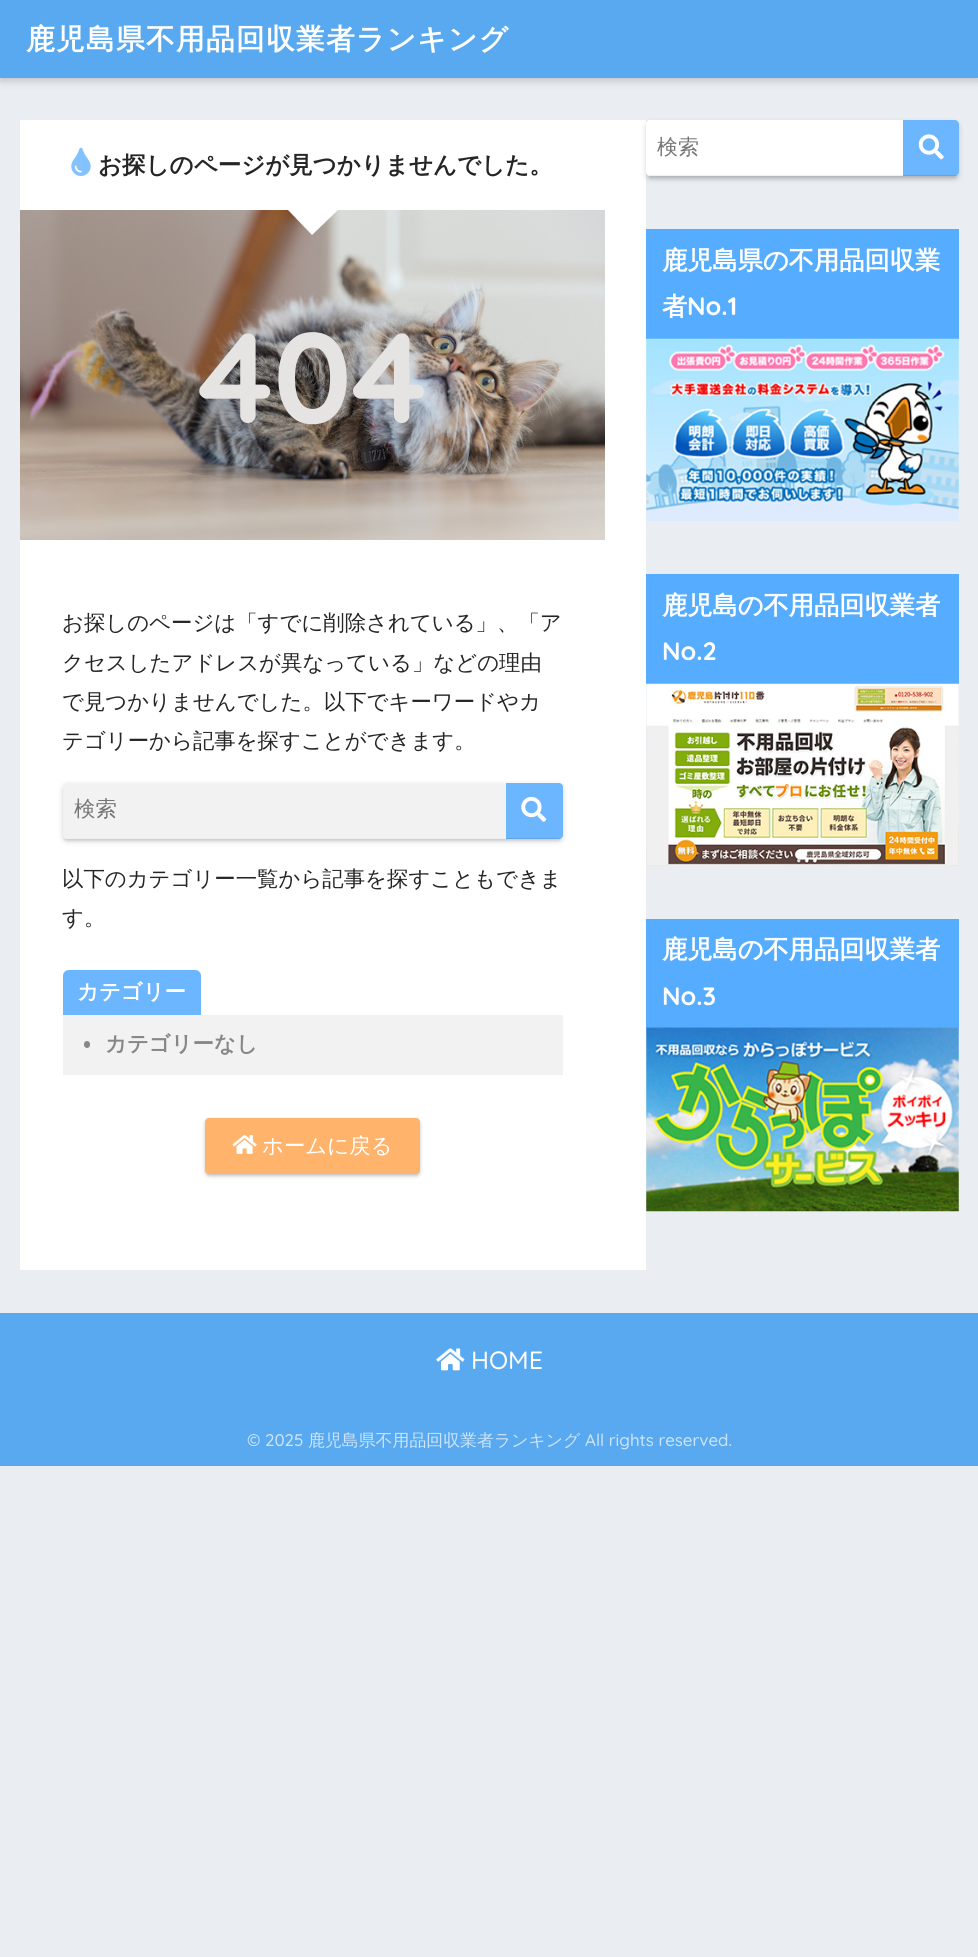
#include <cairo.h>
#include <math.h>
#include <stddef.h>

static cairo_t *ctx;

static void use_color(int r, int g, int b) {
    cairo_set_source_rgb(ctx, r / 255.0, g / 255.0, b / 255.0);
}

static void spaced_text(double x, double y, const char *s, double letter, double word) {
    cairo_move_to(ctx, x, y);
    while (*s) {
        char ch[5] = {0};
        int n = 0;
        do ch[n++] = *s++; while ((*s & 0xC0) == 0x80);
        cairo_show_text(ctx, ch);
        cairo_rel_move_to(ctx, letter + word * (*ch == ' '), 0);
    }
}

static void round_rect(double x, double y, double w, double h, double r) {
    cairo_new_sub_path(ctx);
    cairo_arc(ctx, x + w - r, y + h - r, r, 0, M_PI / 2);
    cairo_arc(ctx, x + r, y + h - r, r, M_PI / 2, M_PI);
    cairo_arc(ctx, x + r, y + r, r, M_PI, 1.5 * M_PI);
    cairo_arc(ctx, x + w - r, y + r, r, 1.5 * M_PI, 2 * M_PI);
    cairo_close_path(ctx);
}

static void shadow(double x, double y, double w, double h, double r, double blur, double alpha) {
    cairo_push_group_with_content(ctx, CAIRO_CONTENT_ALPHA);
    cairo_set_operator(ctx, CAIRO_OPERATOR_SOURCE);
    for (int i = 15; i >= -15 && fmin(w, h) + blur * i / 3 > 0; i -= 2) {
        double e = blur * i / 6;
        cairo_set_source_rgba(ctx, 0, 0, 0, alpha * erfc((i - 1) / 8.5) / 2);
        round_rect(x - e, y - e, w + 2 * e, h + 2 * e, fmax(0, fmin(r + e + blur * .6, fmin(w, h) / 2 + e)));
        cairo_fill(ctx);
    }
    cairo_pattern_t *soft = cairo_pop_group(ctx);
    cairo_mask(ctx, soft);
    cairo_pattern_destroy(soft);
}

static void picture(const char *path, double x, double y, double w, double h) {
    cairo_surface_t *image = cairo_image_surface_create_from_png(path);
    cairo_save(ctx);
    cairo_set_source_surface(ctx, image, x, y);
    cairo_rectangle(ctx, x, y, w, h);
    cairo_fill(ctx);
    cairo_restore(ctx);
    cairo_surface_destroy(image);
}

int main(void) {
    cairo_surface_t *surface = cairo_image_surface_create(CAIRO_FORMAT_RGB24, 978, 1957);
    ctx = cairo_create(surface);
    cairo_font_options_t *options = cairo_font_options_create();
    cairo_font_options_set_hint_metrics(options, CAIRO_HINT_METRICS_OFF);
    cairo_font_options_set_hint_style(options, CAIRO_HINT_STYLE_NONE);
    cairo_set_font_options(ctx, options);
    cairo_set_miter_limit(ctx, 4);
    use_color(234, 237, 242);
    cairo_paint(ctx);
    use_color(0, 0, 0);
    shadow(0, 4, 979, 77, 0, 4, 0.18);
    use_color(88, 169, 239);
    cairo_rectangle(ctx, 0, 0, 978, 78);
    cairo_fill(ctx);
    cairo_select_font_face(ctx, "WenQuanYi Zen Hei", CAIRO_FONT_SLANT_NORMAL, CAIRO_FONT_WEIGHT_BOLD);
    cairo_set_font_size(ctx, 28.75);
    use_color(255, 255, 255);
    spaced_text(26, 49, "鹿児島県不用品回収業者ランキング", 1.25, 0);
    cairo_rectangle(ctx, 20, 120, 626, 1150);
    cairo_fill(ctx);
    picture("img1.png", 71, 147, 20, 29);
    cairo_set_font_size(ctx, 23.5);
    use_color(37, 37, 37);
    cairo_move_to(ctx, 98, 173);
    cairo_show_text(ctx, "お探しのページが見つかりませんでした。");
    picture("img2.png", 20, 210, 585, 330);
    use_color(255, 255, 255);
    cairo_new_path(ctx);
    cairo_move_to(ctx, 288, 210);
    cairo_line_to(ctx, 338, 210);
    cairo_line_to(ctx, 312, 235);
    cairo_close_path(ctx);
    cairo_fill(ctx);
    cairo_select_font_face(ctx, "Quicksand", CAIRO_FONT_SLANT_NORMAL, CAIRO_FONT_WEIGHT_BOLD);
    cairo_set_font_size(ctx, 128);
    use_color(229, 228, 227);
    cairo_move_to(ctx, 198, 423);
    cairo_show_text(ctx, "404");
    cairo_select_font_face(ctx, "WenQuanYi Zen Hei Medium", CAIRO_FONT_SLANT_NORMAL, CAIRO_FONT_WEIGHT_NORMAL);
    cairo_set_font_size(ctx, 21.4);
    use_color(37, 37, 37);
    cairo_move_to(ctx, 62, 630);
    cairo_show_text(ctx, "お探しのページは「すでに削除されている」、「ア");
    cairo_move_to(ctx, 62, 670);
    cairo_show_text(ctx, "クセスしたアドレスが異なっている」などの理由");
    cairo_move_to(ctx, 62, 709);
    cairo_show_text(ctx, "で見つかりませんでした。以下でキーワードやカ");
    cairo_move_to(ctx, 62, 748);
    cairo_show_text(ctx, "テゴリーから記事を探すことができます。");
    use_color(0, 0, 0);
    shadow(65, 789, 495, 51, 1, 2, 0.15);
    shadow(63, 785, 500, 56, 4, 3, 0.15);
    use_color(242, 242, 242);
    round_rect(63, 783, 500, 56, 4);
    cairo_fill(ctx);
    use_color(239, 239, 239);
    cairo_rectangle(ctx, 65, 838, 496, 1);
    cairo_fill(ctx);
    use_color(117, 117, 117);
    cairo_move_to(ctx, 74, 816);
    cairo_show_text(ctx, "検索");
    use_color(107, 182, 255);
    cairo_new_path(ctx);
    cairo_move_to(ctx, 506, 783);
    cairo_line_to(ctx, 559, 783);
    cairo_curve_to(ctx, 561, 783, 563, 785, 563, 787);
    cairo_line_to(ctx, 563, 835);
    cairo_curve_to(ctx, 563, 837, 561, 839, 559, 839);
    cairo_line_to(ctx, 506, 839);
    cairo_close_path(ctx);
    cairo_fill(ctx);
    cairo_set_source_rgba(ctx, 0, 0, 0, 0.1);
    cairo_rectangle(ctx, 506, 838, 55, 1);
    cairo_fill(ctx);
    picture("img3.png", 521, 796, 26, 26);
    use_color(37, 37, 37);
    cairo_move_to(ctx, 62, 886);
    cairo_show_text(ctx, "以下のカテゴリー一覧から記事を探すこともできま");
    cairo_move_to(ctx, 62, 925);
    cairo_show_text(ctx, "す。");
    use_color(107, 182, 255);
    cairo_new_path(ctx);
    cairo_move_to(ctx, 69, 970);
    cairo_line_to(ctx, 195, 970);
    cairo_curve_to(ctx, 198.5, 970, 201, 972.5, 201, 976);
    cairo_line_to(ctx, 201, 1015);
    cairo_line_to(ctx, 63, 1015);
    cairo_line_to(ctx, 63, 976);
    cairo_curve_to(ctx, 63, 972.5, 65.5, 970, 69, 970);
    cairo_close_path(ctx);
    cairo_fill(ctx);
    cairo_select_font_face(ctx, "WenQuanYi Zen Hei", CAIRO_FONT_SLANT_NORMAL, CAIRO_FONT_WEIGHT_BOLD);
    use_color(255, 255, 255);
    cairo_move_to(ctx, 77, 999);
    cairo_show_text(ctx, "カテゴリー");
    use_color(242, 242, 242);
    cairo_rectangle(ctx, 63, 1015, 500, 60);
    cairo_fill(ctx);
    use_color(135, 135, 135);
    round_rect(84, 1041, 6, 7, 3);
    cairo_fill(ctx);
    cairo_move_to(ctx, 105, 1051);
    cairo_show_text(ctx, "カテゴリーなし");
    use_color(0, 0, 0);
    shadow(208, 1123, 210, 51, 1, 2, 0.15);
    shadow(205, 1120, 215, 56, 4, 2, 0.2);
    use_color(255, 179, 107);
    round_rect(205, 1118, 215, 56, 4);
    cairo_fill(ctx);
    picture("img4.png", 232, 1135, 25, 19);
    cairo_select_font_face(ctx, "WenQuanYi Zen Hei Medium", CAIRO_FONT_SLANT_NORMAL, CAIRO_FONT_WEIGHT_NORMAL);
    use_color(255, 255, 255);
    cairo_move_to(ctx, 262, 1153);
    cairo_show_text(ctx, "ホームに戻る");
    use_color(0, 0, 0);
    shadow(649, 126, 307, 52, 1, 2, 0.15);
    shadow(646, 123, 313, 56, 4, 3, 0.15);
    use_color(255, 255, 255);
    round_rect(646, 120, 313, 56, 4);
    cairo_fill(ctx);
    use_color(239, 239, 239);
    cairo_rectangle(ctx, 649, 175, 309, 1);
    cairo_fill(ctx);
    cairo_set_font_size(ctx, 21);
    use_color(117, 117, 117);
    cairo_move_to(ctx, 657, 154);
    cairo_show_text(ctx, "検索");
    use_color(107, 182, 255);
    cairo_new_path(ctx);
    cairo_move_to(ctx, 903, 120);
    cairo_line_to(ctx, 955, 120);
    cairo_curve_to(ctx, 957, 120, 959, 122, 959, 124);
    cairo_line_to(ctx, 959, 172);
    cairo_curve_to(ctx, 959, 174, 957, 176, 955, 176);
    cairo_line_to(ctx, 903, 176);
    cairo_close_path(ctx);
    cairo_fill(ctx);
    cairo_set_source_rgba(ctx, 0, 0, 0, 0.1);
    cairo_rectangle(ctx, 903, 175, 55, 1);
    cairo_fill(ctx);
    picture("img5.png", 918, 134, 26, 26);
    use_color(86, 173, 255);
    cairo_rectangle(ctx, 646, 229, 313, 110);
    cairo_fill(ctx);
    cairo_select_font_face(ctx, "WenQuanYi Zen Hei", CAIRO_FONT_SLANT_NORMAL, CAIRO_FONT_WEIGHT_BOLD);
    cairo_set_font_size(ctx, 25.25);
    use_color(255, 255, 255);
    cairo_move_to(ctx, 662, 269);
    cairo_show_text(ctx, "鹿児島県の不用品回収業");
    cairo_move_to(ctx, 662, 315);
    cairo_show_text(ctx, "者");
    cairo_select_font_face(ctx, "Quicksand", CAIRO_FONT_SLANT_NORMAL, CAIRO_FONT_WEIGHT_BOLD);
    cairo_move_to(ctx, 687, 315);
    cairo_show_text(ctx, "No.1");
    picture("img6.png", 646, 338, 313, 183);
    use_color(86, 173, 255);
    cairo_rectangle(ctx, 646, 574, 313, 110);
    cairo_fill(ctx);
    cairo_select_font_face(ctx, "WenQuanYi Zen Hei", CAIRO_FONT_SLANT_NORMAL, CAIRO_FONT_WEIGHT_BOLD);
    use_color(255, 255, 255);
    cairo_move_to(ctx, 662, 614);
    cairo_show_text(ctx, "鹿児島の不用品回収業者");
    cairo_select_font_face(ctx, "Quicksand", CAIRO_FONT_SLANT_NORMAL, CAIRO_FONT_WEIGHT_BOLD);
    cairo_move_to(ctx, 662, 660);
    cairo_show_text(ctx, "No.2");
    picture("img7.png", 646, 683, 313, 184);
    use_color(86, 173, 255);
    cairo_rectangle(ctx, 646, 919, 313, 109);
    cairo_fill(ctx);
    cairo_select_font_face(ctx, "WenQuanYi Zen Hei", CAIRO_FONT_SLANT_NORMAL, CAIRO_FONT_WEIGHT_BOLD);
    use_color(255, 255, 255);
    cairo_move_to(ctx, 662, 958);
    cairo_show_text(ctx, "鹿児島の不用品回収業者");
    cairo_select_font_face(ctx, "Quicksand", CAIRO_FONT_SLANT_NORMAL, CAIRO_FONT_WEIGHT_BOLD);
    cairo_move_to(ctx, 662, 1005);
    cairo_show_text(ctx, "No.3");
    picture("img8.png", 646, 1027, 313, 185);
    use_color(88, 169, 239);
    cairo_rectangle(ctx, 0, 1313, 978, 153);
    cairo_fill(ctx);
    picture("img9.png", 436, 1348, 29, 23);
    cairo_select_font_face(ctx, "Quicksand Medium", CAIRO_FONT_SLANT_NORMAL, CAIRO_FONT_WEIGHT_NORMAL);
    cairo_set_font_size(ctx, 25);
    use_color(255, 255, 255);
    cairo_move_to(ctx, 471, 1369);
    cairo_show_text(ctx, "HOME");
    cairo_set_font_size(ctx, 16.9);
    use_color(205, 229, 250);
    cairo_move_to(ctx, 247, 1446);
    cairo_show_text(ctx, "© 2025");
    cairo_select_font_face(ctx, "WenQuanYi Zen Hei Medium", CAIRO_FONT_SLANT_NORMAL, CAIRO_FONT_WEIGHT_NORMAL);
    cairo_move_to(ctx, 308, 1446);
    cairo_show_text(ctx, "鹿児島県不用品回収業者ランキング");
    cairo_select_font_face(ctx, "Quicksand Medium", CAIRO_FONT_SLANT_NORMAL, CAIRO_FONT_WEIGHT_NORMAL);
    cairo_move_to(ctx, 585, 1446);
    cairo_show_text(ctx, "All rights reserved.");
    cairo_surface_write_to_png(surface, "result.png");
    cairo_font_options_destroy(options);
    cairo_destroy(ctx);
    cairo_surface_destroy(surface);
    return 0;
}
